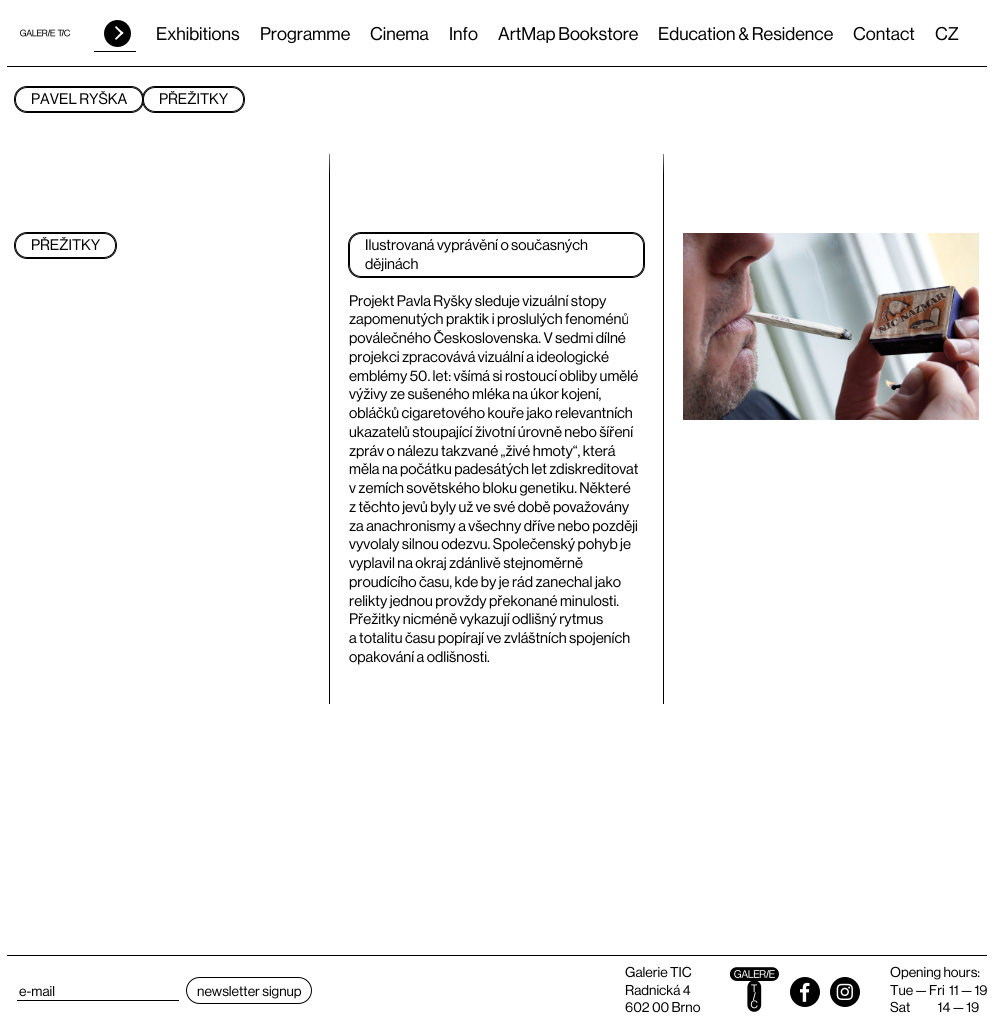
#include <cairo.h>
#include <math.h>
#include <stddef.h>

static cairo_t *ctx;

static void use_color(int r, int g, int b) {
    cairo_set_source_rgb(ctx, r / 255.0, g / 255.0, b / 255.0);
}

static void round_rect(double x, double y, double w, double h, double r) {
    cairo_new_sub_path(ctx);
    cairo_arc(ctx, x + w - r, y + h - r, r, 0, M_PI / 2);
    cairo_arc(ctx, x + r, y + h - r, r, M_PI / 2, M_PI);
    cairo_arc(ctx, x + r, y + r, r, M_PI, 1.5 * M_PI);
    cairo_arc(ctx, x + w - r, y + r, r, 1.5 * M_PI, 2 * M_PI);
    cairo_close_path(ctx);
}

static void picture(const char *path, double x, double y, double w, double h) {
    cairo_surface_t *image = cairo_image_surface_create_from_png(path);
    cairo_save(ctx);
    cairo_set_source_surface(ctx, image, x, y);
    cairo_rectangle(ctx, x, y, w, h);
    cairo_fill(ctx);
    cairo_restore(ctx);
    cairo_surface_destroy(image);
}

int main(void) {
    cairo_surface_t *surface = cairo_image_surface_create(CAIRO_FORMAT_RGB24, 994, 1032);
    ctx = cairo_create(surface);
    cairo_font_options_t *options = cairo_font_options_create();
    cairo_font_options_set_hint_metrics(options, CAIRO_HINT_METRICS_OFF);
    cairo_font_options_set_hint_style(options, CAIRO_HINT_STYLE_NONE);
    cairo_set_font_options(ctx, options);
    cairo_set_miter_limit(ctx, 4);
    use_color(255, 255, 255);
    cairo_paint(ctx);
    picture("img1.png", 20, 29, 50, 8);
    use_color(0, 0, 0);
    cairo_arc(ctx, 117.5, 33.5, 13.5, 0, 2 * M_PI);
    cairo_fill(ctx);
    use_color(255, 255, 255);
    cairo_new_path(ctx);
    cairo_move_to(ctx, 116, 26);
    cairo_line_to(ctx, 123.5, 33);
    cairo_line_to(ctx, 122, 34.5);
    cairo_line_to(ctx, 115, 27.5);
    cairo_close_path(ctx);
    cairo_fill(ctx);
    cairo_new_path(ctx);
    cairo_move_to(ctx, 122, 31.5);
    cairo_line_to(ctx, 123.5, 33);
    cairo_line_to(ctx, 116, 40);
    cairo_line_to(ctx, 115, 38.5);
    cairo_close_path(ctx);
    cairo_fill(ctx);
    use_color(0, 0, 0);
    cairo_rectangle(ctx, 94, 51, 42, 1);
    cairo_fill(ctx);
    cairo_select_font_face(ctx, "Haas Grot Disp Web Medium", CAIRO_FONT_SLANT_NORMAL, CAIRO_FONT_WEIGHT_NORMAL);
    cairo_set_font_size(ctx, 18);
    cairo_move_to(ctx, 156, 40);
    cairo_show_text(ctx, "Exhibitions");
    cairo_move_to(ctx, 260, 40);
    cairo_show_text(ctx, "Programme");
    cairo_move_to(ctx, 370, 40);
    cairo_show_text(ctx, "Cinema");
    cairo_move_to(ctx, 449, 40);
    cairo_show_text(ctx, "Info");
    cairo_move_to(ctx, 498, 40);
    cairo_show_text(ctx, "ArtMap Bookstore");
    cairo_move_to(ctx, 658, 40);
    cairo_show_text(ctx, "Education & Residence");
    cairo_move_to(ctx, 853, 40);
    cairo_show_text(ctx, "Contact");
    cairo_move_to(ctx, 935, 40);
    cairo_show_text(ctx, "CZ");
    cairo_rectangle(ctx, 7, 66, 980, 1);
    cairo_fill(ctx);
    round_rect(14.5, 86.5, 129, 26, 12.5);
    cairo_set_line_width(ctx, 1);
    cairo_stroke(ctx);
    use_color(255, 255, 255);
    round_rect(15.5, 87.5, 127, 24, 11.5);
    cairo_fill_preserve(ctx);
    use_color(0, 0, 0);
    cairo_stroke(ctx);
    cairo_set_font_size(ctx, 15);
    cairo_move_to(ctx, 31, 104);
    cairo_show_text(ctx, "PAVEL RYŠKA");
    round_rect(142.5, 86.5, 102, 26, 12.5);
    cairo_stroke(ctx);
    use_color(255, 255, 255);
    round_rect(143.5, 87.5, 100, 24, 11.5);
    cairo_fill_preserve(ctx);
    use_color(0, 0, 0);
    cairo_stroke(ctx);
    cairo_move_to(ctx, 159, 104);
    cairo_show_text(ctx, "PŘEŽITKY");
    cairo_rectangle(ctx, 329, 154, 1, 550);
    cairo_fill(ctx);
    cairo_rectangle(ctx, 663, 154, 1, 550);
    cairo_fill(ctx);
    picture("img2.png", 329, 154, 335, 20);
    round_rect(14.5, 232.5, 102, 26, 12.5);
    cairo_stroke(ctx);
    use_color(255, 255, 255);
    round_rect(15.5, 233.5, 100, 24, 11.5);
    cairo_fill_preserve(ctx);
    use_color(0, 0, 0);
    cairo_stroke(ctx);
    cairo_move_to(ctx, 31, 250);
    cairo_show_text(ctx, "PŘEŽITKY");
    round_rect(348.5, 232.5, 296, 45, 12.5);
    cairo_stroke(ctx);
    use_color(255, 255, 255);
    round_rect(349.5, 233.5, 294, 43, 11.5);
    cairo_fill_preserve(ctx);
    use_color(0, 0, 0);
    cairo_stroke(ctx);
    cairo_move_to(ctx, 365, 250);
    cairo_show_text(ctx, "Ilustrovaná vyprávění o současných");
    cairo_move_to(ctx, 365, 269);
    cairo_show_text(ctx, "dějinách");
    cairo_move_to(ctx, 349, 306);
    cairo_show_text(ctx, "Projekt Pavla Ryšky sleduje vizuální stopy");
    cairo_move_to(ctx, 349, 324);
    cairo_show_text(ctx, "zapomenutých praktik i proslulých fenoménů");
    cairo_move_to(ctx, 349, 343);
    cairo_show_text(ctx, "poválečného Československa. V sedmi dílné");
    cairo_move_to(ctx, 349, 362);
    cairo_show_text(ctx, "projekci zpracovává vizuální a ideologické");
    cairo_move_to(ctx, 349, 381);
    cairo_show_text(ctx, "emblémy 50. let: všímá si rostoucí obliby umělé");
    cairo_move_to(ctx, 349, 399);
    cairo_show_text(ctx, "výživy ze sušeného mléka na úkor kojení,");
    cairo_move_to(ctx, 349, 418);
    cairo_show_text(ctx, "obláčků cigaretového kouře jako relevantních");
    cairo_move_to(ctx, 349, 437);
    cairo_show_text(ctx, "ukazatelů stoupající životní úrovně nebo šíření");
    cairo_move_to(ctx, 349, 456);
    cairo_show_text(ctx, "zpráv o nálezu takzvané „živé hmoty“, která");
    cairo_move_to(ctx, 349, 474);
    cairo_show_text(ctx, "měla na počátku padesátých let zdiskreditovat");
    cairo_move_to(ctx, 349, 493);
    cairo_show_text(ctx, "v zemích sovětského bloku genetiku. Některé");
    cairo_move_to(ctx, 349, 512);
    cairo_show_text(ctx, "z těchto jevů byly už ve své době považovány");
    cairo_move_to(ctx, 349, 531);
    cairo_show_text(ctx, "za anachronismy a všechny dříve nebo později");
    cairo_move_to(ctx, 349, 549);
    cairo_show_text(ctx, "vyvolaly silnou odezvu. Společenský pohyb je");
    cairo_move_to(ctx, 349, 568);
    cairo_show_text(ctx, "vyplavil na okraj zdánlivě stejnoměrně");
    cairo_move_to(ctx, 349, 587);
    cairo_show_text(ctx, "proudícího času, kde by je rád zanechal jako");
    cairo_move_to(ctx, 349, 606);
    cairo_show_text(ctx, "relikty jednou provždy překonané minulosti.");
    cairo_move_to(ctx, 349, 624);
    cairo_show_text(ctx, "Přežitky nicméně vykazují odlišný rytmus");
    cairo_move_to(ctx, 349, 643);
    cairo_show_text(ctx, "a totalitu času popírají ve zvláštních spojeních");
    cairo_move_to(ctx, 349, 662);
    cairo_show_text(ctx, "opakování a odlišnosti.");
    picture("img3.png", 683, 233, 296, 187);
    cairo_rectangle(ctx, 7, 955, 980, 1);
    cairo_fill(ctx);
    cairo_rectangle(ctx, 17, 1000, 162, 1);
    cairo_fill(ctx);
    cairo_set_font_size(ctx, 14);
    cairo_move_to(ctx, 19, 996);
    cairo_show_text(ctx, "e-mail");
    round_rect(186.5, 977.5, 125, 26, 13);
    cairo_stroke(ctx);
    cairo_move_to(ctx, 197, 996);
    cairo_show_text(ctx, "newsletter signup");
    cairo_move_to(ctx, 625, 977);
    cairo_show_text(ctx, "Galerie TIC");
    cairo_move_to(ctx, 625, 995);
    cairo_show_text(ctx, "Radnická 4");
    cairo_move_to(ctx, 625, 1012);
    cairo_show_text(ctx, "602 00 Brno");
    picture("img4.png", 730, 967, 49, 45);
    picture("img5.png", 790, 977, 30, 30);
    picture("img6.png", 830, 977, 30, 30);
    cairo_move_to(ctx, 890, 977);
    cairo_show_text(ctx, "Opening hours:");
    cairo_move_to(ctx, 890, 995);
    cairo_show_text(ctx, "Tue — Fri");
    cairo_move_to(ctx, 949, 995);
    cairo_show_text(ctx, "11 — 19");
    cairo_move_to(ctx, 890, 1012);
    cairo_show_text(ctx, "Sat            14 — 19");
    cairo_surface_write_to_png(surface, "result.png");
    cairo_font_options_destroy(options);
    cairo_destroy(ctx);
    cairo_surface_destroy(surface);
    return 0;
}
